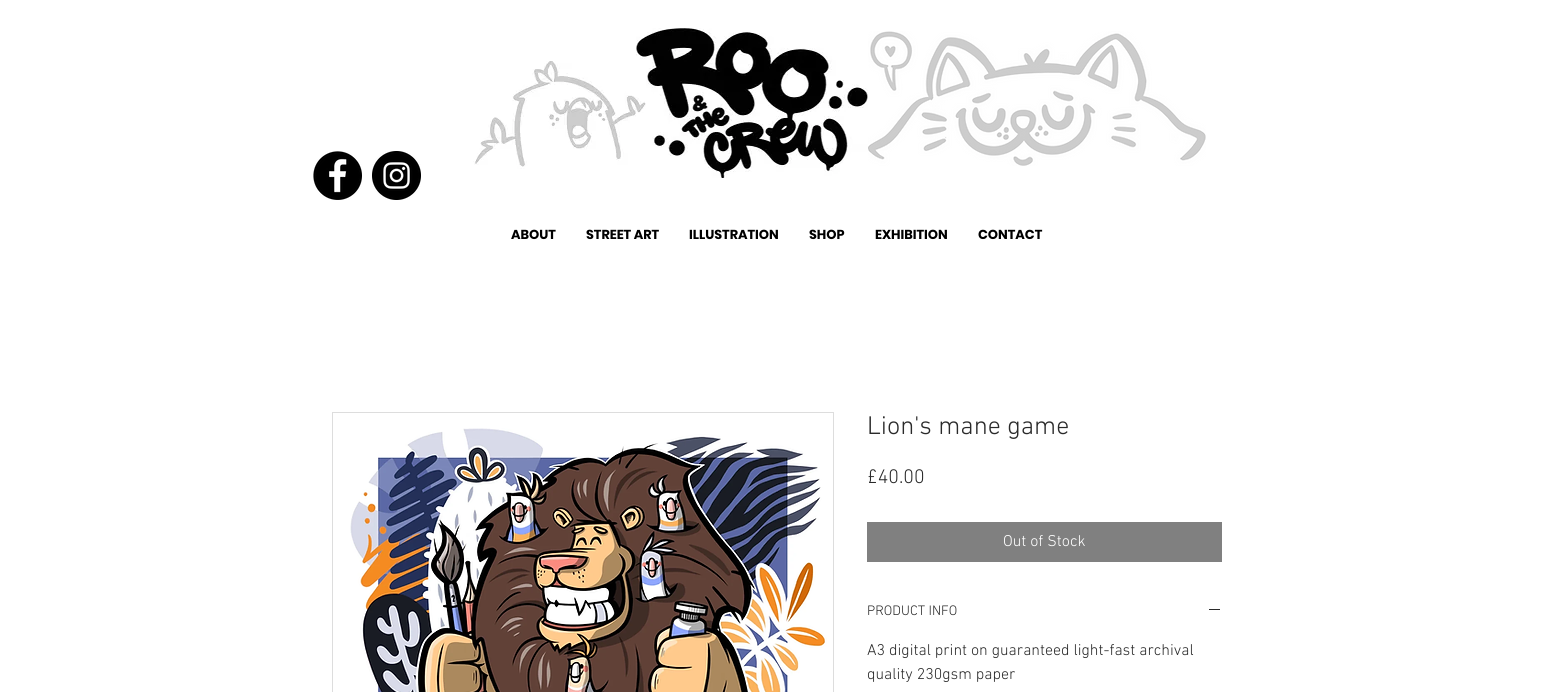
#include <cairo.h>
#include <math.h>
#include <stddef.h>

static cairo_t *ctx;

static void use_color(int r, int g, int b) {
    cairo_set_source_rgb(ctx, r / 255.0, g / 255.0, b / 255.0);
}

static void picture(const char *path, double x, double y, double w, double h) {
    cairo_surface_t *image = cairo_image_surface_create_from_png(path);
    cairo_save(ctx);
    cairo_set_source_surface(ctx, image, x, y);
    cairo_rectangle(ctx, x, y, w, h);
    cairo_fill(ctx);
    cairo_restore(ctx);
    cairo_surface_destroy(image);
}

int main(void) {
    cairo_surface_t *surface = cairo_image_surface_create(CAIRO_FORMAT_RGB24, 1553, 692);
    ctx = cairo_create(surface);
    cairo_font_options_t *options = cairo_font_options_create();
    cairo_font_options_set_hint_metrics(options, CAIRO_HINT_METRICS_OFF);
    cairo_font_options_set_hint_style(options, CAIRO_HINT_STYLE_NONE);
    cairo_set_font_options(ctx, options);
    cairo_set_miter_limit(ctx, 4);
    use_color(255, 255, 255);
    cairo_paint(ctx);
    picture("img2.png", 636, 28, 232, 150);
    picture("img1.png", 473, 61, 173, 108);
    picture("img3.png", 868, 31, 338, 135);
    picture("img4.png", 313, 151, 49, 49);
    picture("img5.png", 372, 151, 49, 49);
    cairo_select_font_face(ctx, "Poppins", CAIRO_FONT_SLANT_NORMAL, CAIRO_FONT_WEIGHT_BOLD);
    cairo_set_font_size(ctx, 13);
    use_color(0, 0, 0);
    cairo_move_to(ctx, 511, 239);
    cairo_show_text(ctx, "ABOUT");
    cairo_move_to(ctx, 586, 239);
    cairo_show_text(ctx, "STREET ART");
    cairo_move_to(ctx, 689, 239);
    cairo_show_text(ctx, "ILLUSTRATION");
    cairo_move_to(ctx, 809, 239);
    cairo_show_text(ctx, "SHOP");
    cairo_move_to(ctx, 875, 239);
    cairo_show_text(ctx, "EXHIBITION");
    cairo_move_to(ctx, 978, 239);
    cairo_show_text(ctx, "CONTACT");
    cairo_rectangle(ctx, 332.5, 412.5, 501, 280);
    use_color(221, 221, 221);
    cairo_set_line_width(ctx, 1);
    cairo_stroke(ctx);
    picture("img6.png", 350, 428, 477, 264);
    cairo_select_font_face(ctx, "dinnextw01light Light", CAIRO_FONT_SLANT_NORMAL, CAIRO_FONT_WEIGHT_NORMAL);
    cairo_set_font_size(ctx, 26);
    use_color(42, 42, 42);
    cairo_move_to(ctx, 867, 434);
    cairo_show_text(ctx, "Lion's mane game");
    cairo_set_font_size(ctx, 20);
    cairo_move_to(ctx, 867, 483);
    cairo_show_text(ctx, "£40.00");
    use_color(128, 128, 128);
    cairo_rectangle(ctx, 867, 522, 355, 40);
    cairo_fill(ctx);
    cairo_set_font_size(ctx, 16);
    use_color(255, 255, 255);
    cairo_move_to(ctx, 1003, 546);
    cairo_show_text(ctx, "Out of Stock");
    cairo_set_font_size(ctx, 14);
    use_color(42, 42, 42);
    cairo_move_to(ctx, 867, 615);
    cairo_show_text(ctx, "PRODUCT INFO");
    cairo_rectangle(ctx, 1209, 609, 11, 1);
    cairo_fill(ctx);
    cairo_set_font_size(ctx, 16);
    cairo_move_to(ctx, 867, 655);
    cairo_show_text(ctx, "A3 digital print on guaranteed light-fast archival");
    cairo_move_to(ctx, 867, 679);
    cairo_show_text(ctx, "quality 230gsm paper");
    cairo_surface_write_to_png(surface, "result.png");
    cairo_font_options_destroy(options);
    cairo_destroy(ctx);
    cairo_surface_destroy(surface);
    return 0;
}
